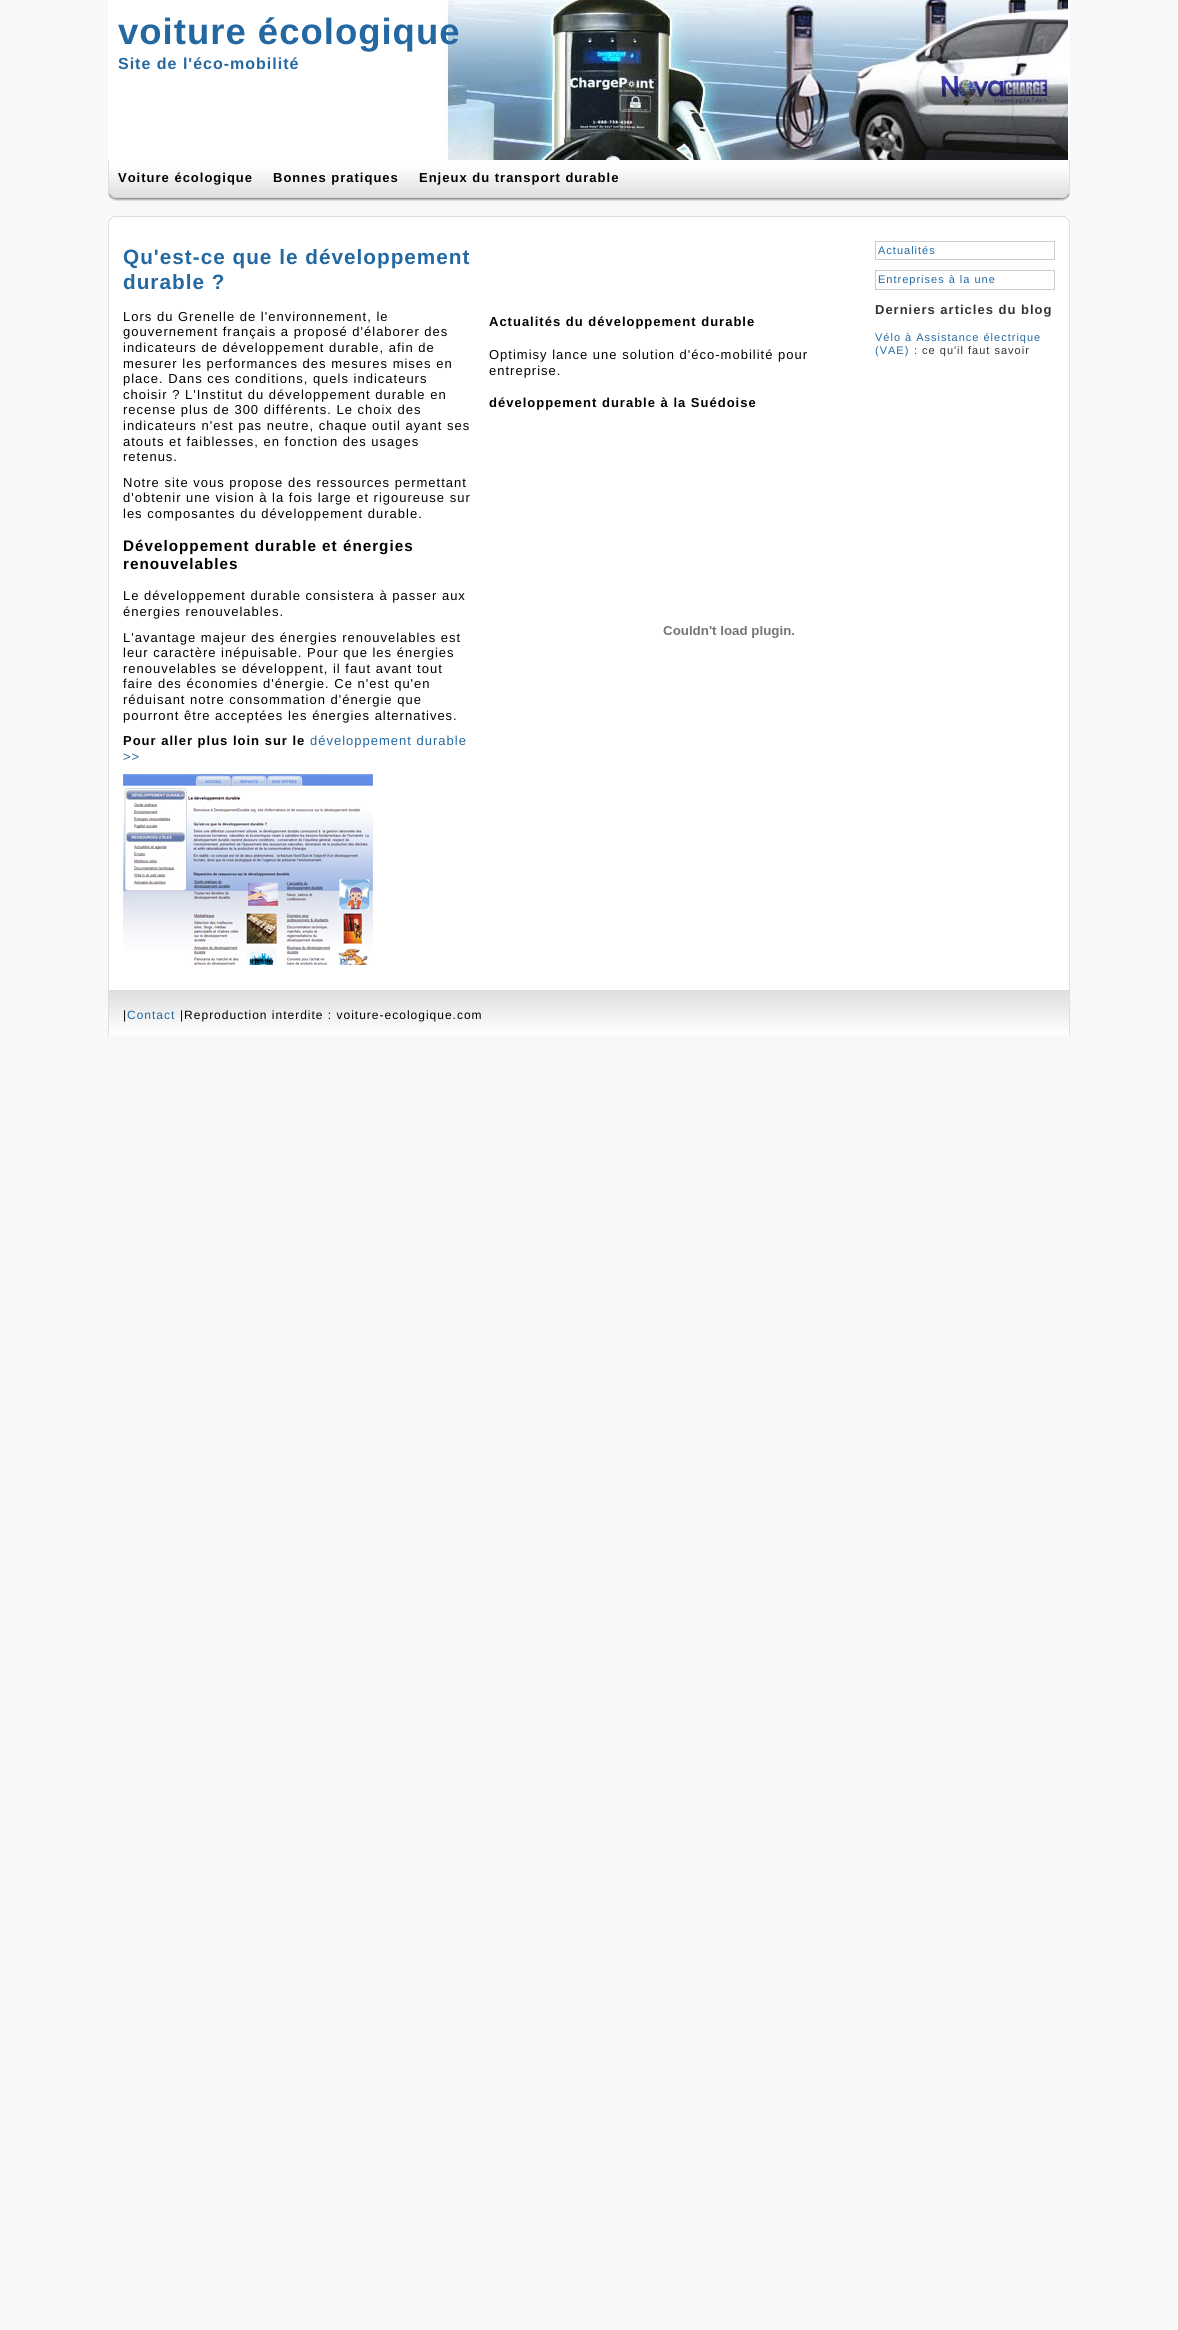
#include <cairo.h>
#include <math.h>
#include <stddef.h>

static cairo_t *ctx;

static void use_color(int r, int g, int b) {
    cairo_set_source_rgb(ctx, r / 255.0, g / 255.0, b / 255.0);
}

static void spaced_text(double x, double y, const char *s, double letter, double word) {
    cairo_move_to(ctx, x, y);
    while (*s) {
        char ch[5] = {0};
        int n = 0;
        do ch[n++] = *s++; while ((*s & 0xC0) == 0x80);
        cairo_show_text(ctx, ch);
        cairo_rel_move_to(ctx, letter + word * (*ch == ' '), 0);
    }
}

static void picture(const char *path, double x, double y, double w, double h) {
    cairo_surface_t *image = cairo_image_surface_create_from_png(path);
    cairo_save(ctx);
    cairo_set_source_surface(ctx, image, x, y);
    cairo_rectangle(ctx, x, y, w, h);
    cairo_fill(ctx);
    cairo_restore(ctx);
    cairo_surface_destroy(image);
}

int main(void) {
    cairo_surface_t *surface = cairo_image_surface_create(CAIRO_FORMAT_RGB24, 1178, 2330);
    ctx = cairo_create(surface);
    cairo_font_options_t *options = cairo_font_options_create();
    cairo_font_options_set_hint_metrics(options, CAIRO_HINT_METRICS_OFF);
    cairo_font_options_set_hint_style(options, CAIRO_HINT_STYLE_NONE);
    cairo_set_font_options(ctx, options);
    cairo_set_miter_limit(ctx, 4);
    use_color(248, 248, 248);
    cairo_paint(ctx);
    use_color(255, 255, 255);
    cairo_rectangle(ctx, 108, 0, 962, 160);
    cairo_fill(ctx);
    picture("img1.png", 444, 0, 624, 160);
    cairo_select_font_face(ctx, "Liberation Sans", CAIRO_FONT_SLANT_NORMAL, CAIRO_FONT_WEIGHT_BOLD);
    cairo_set_font_size(ctx, 36.5);
    use_color(36, 104, 162);
    spaced_text(118, 44, "voiture écologique", 1, 0);
    cairo_set_font_size(ctx, 16);
    spaced_text(118, 69, "Site de l'éco-mobilité", 1, 0);
    picture("img2.png", 108, 160, 962, 41);
    cairo_set_font_size(ctx, 13);
    use_color(0, 0, 0);
    spaced_text(118, 182, "Voiture écologique", 1, 0);
    spaced_text(273, 182, "Bonnes pratiques", 1, 0);
    spaced_text(419, 182, "Enjeux du transport durable", 1, 0);
    use_color(255, 255, 255);
    cairo_rectangle(ctx, 108, 216, 962, 7);
    cairo_fill(ctx);
    picture("img3.png", 108, 216, 962, 774);
    cairo_set_font_size(ctx, 20.75);
    use_color(36, 104, 162);
    spaced_text(123, 264, "Qu'est-ce que le développement", 1, 0);
    spaced_text(123, 289, "durable ?", 1, 0);
    cairo_select_font_face(ctx, "Liberation Sans", CAIRO_FONT_SLANT_NORMAL, CAIRO_FONT_WEIGHT_NORMAL);
    cairo_set_font_size(ctx, 13);
    use_color(0, 0, 0);
    spaced_text(123, 321, "Lors du Grenelle de l'environnement, le", 1, 0);
    spaced_text(123, 336, "gouvernement français a proposé d'élaborer des", 1, 0);
    spaced_text(123, 352, "indicateurs de développement durable, afin de", 1, 0);
    spaced_text(123, 368, "mesurer les performances des mesures mises en", 1, 0);
    spaced_text(123, 383, "place. Dans ces conditions, quels indicateurs", 1, 0);
    spaced_text(123, 399, "choisir ? L'Institut du développement durable en", 1, 0);
    spaced_text(123, 414, "recense plus de 300 différents. Le choix des", 1, 0);
    spaced_text(123, 430, "indicateurs n'est pas neutre, chaque outil ayant ses", 1, 0);
    spaced_text(123, 446, "atouts et faiblesses, en fonction des usages", 1, 0);
    spaced_text(123, 461, "retenus.", 1, 0);
    spaced_text(123, 487, "Notre site vous propose des ressources permettant", 1, 0);
    spaced_text(123, 502, "d'obtenir une vision à la fois large et rigoureuse sur", 1, 0);
    spaced_text(123, 518, "les composantes du développement durable.", 1, 0);
    cairo_select_font_face(ctx, "Liberation Sans", CAIRO_FONT_SLANT_NORMAL, CAIRO_FONT_WEIGHT_BOLD);
    cairo_set_font_size(ctx, 15.25);
    spaced_text(123, 551, "Développement durable et énergies", 1, 0);
    spaced_text(123, 569, "renouvelables", 1, 0);
    cairo_select_font_face(ctx, "Liberation Sans", CAIRO_FONT_SLANT_NORMAL, CAIRO_FONT_WEIGHT_NORMAL);
    cairo_set_font_size(ctx, 13);
    spaced_text(123, 600, "Le développement durable consistera à passer aux", 1, 0);
    spaced_text(123, 616, "énergies renouvelables.", 1, 0);
    spaced_text(123, 642, "L'avantage majeur des énergies renouvelables est", 1, 0);
    spaced_text(123, 657, "leur caractère inépuisable. Pour que les énergies", 1, 0);
    spaced_text(123, 673, "renouvelables se développent, il faut avant tout", 1, 0);
    spaced_text(123, 688, "faire des économies d'énergie. Ce n'est qu'en", 1, 0);
    spaced_text(123, 704, "réduisant notre consommation d'énergie que", 1, 0);
    spaced_text(123, 720, "pourront être acceptées les énergies alternatives.", 1, 0);
    cairo_select_font_face(ctx, "Liberation Sans", CAIRO_FONT_SLANT_NORMAL, CAIRO_FONT_WEIGHT_BOLD);
    spaced_text(123, 745, "Pour aller plus loin sur le", 1, 0);
    cairo_select_font_face(ctx, "Liberation Sans", CAIRO_FONT_SLANT_NORMAL, CAIRO_FONT_WEIGHT_NORMAL);
    use_color(36, 104, 162);
    spaced_text(310, 745, "développement durable", 1, 0);
    spaced_text(123, 761, ">>", 1, 0);
    picture("img4.png", 123, 774, 250, 191);
    cairo_select_font_face(ctx, "Liberation Sans", CAIRO_FONT_SLANT_NORMAL, CAIRO_FONT_WEIGHT_BOLD);
    use_color(0, 0, 0);
    spaced_text(489, 326, "Actualités du développement durable", 1, 0);
    cairo_select_font_face(ctx, "Liberation Sans", CAIRO_FONT_SLANT_NORMAL, CAIRO_FONT_WEIGHT_NORMAL);
    spaced_text(489, 359, "Optimisy lance une solution d'éco-mobilité pour", 1, 0);
    spaced_text(489, 375, "entreprise.", 1, 0);
    cairo_select_font_face(ctx, "Liberation Sans", CAIRO_FONT_SLANT_NORMAL, CAIRO_FONT_WEIGHT_BOLD);
    spaced_text(489, 407, "développement durable à la Suédoise", 1, 0);
    picture("img5.png", 663, 626, 131, 12);
    cairo_rectangle(ctx, 875.5, 241.5, 179, 18);
    use_color(204, 204, 204);
    cairo_set_line_width(ctx, 1);
    cairo_stroke(ctx);
    cairo_select_font_face(ctx, "Liberation Sans", CAIRO_FONT_SLANT_NORMAL, CAIRO_FONT_WEIGHT_NORMAL);
    cairo_set_font_size(ctx, 11);
    use_color(36, 104, 162);
    spaced_text(878, 254, "Actualités", 1, 0);
    cairo_rectangle(ctx, 875.5, 270.5, 179, 19);
    use_color(204, 204, 204);
    cairo_stroke(ctx);
    use_color(36, 104, 162);
    spaced_text(878, 283, "Entreprises à la une", 1, 0);
    cairo_select_font_face(ctx, "Liberation Sans", CAIRO_FONT_SLANT_NORMAL, CAIRO_FONT_WEIGHT_BOLD);
    cairo_set_font_size(ctx, 13);
    use_color(51, 51, 51);
    spaced_text(875, 314, "Derniers articles du blog", 1, 0);
    cairo_select_font_face(ctx, "Liberation Sans", CAIRO_FONT_SLANT_NORMAL, CAIRO_FONT_WEIGHT_NORMAL);
    cairo_set_font_size(ctx, 11);
    use_color(36, 104, 162);
    spaced_text(875, 341, "Vélo à Assistance électrique", 1, 0);
    spaced_text(875, 354, "(VAE)", 1, 0);
    use_color(51, 51, 51);
    spaced_text(914, 354, ": ce qu'il faut savoir", 1, 0);
    picture("img6.png", 108, 990, 962, 45);
    cairo_set_font_size(ctx, 12);
    use_color(0, 0, 0);
    spaced_text(123, 1019, "|", 1, 0);
    use_color(36, 104, 162);
    spaced_text(127, 1019, "Contact", 1, 0);
    use_color(0, 0, 0);
    spaced_text(180, 1019, "|Reproduction interdite : voiture-ecologique.com", 1, 0);
    cairo_surface_write_to_png(surface, "result.png");
    cairo_font_options_destroy(options);
    cairo_destroy(ctx);
    cairo_surface_destroy(surface);
    return 0;
}
